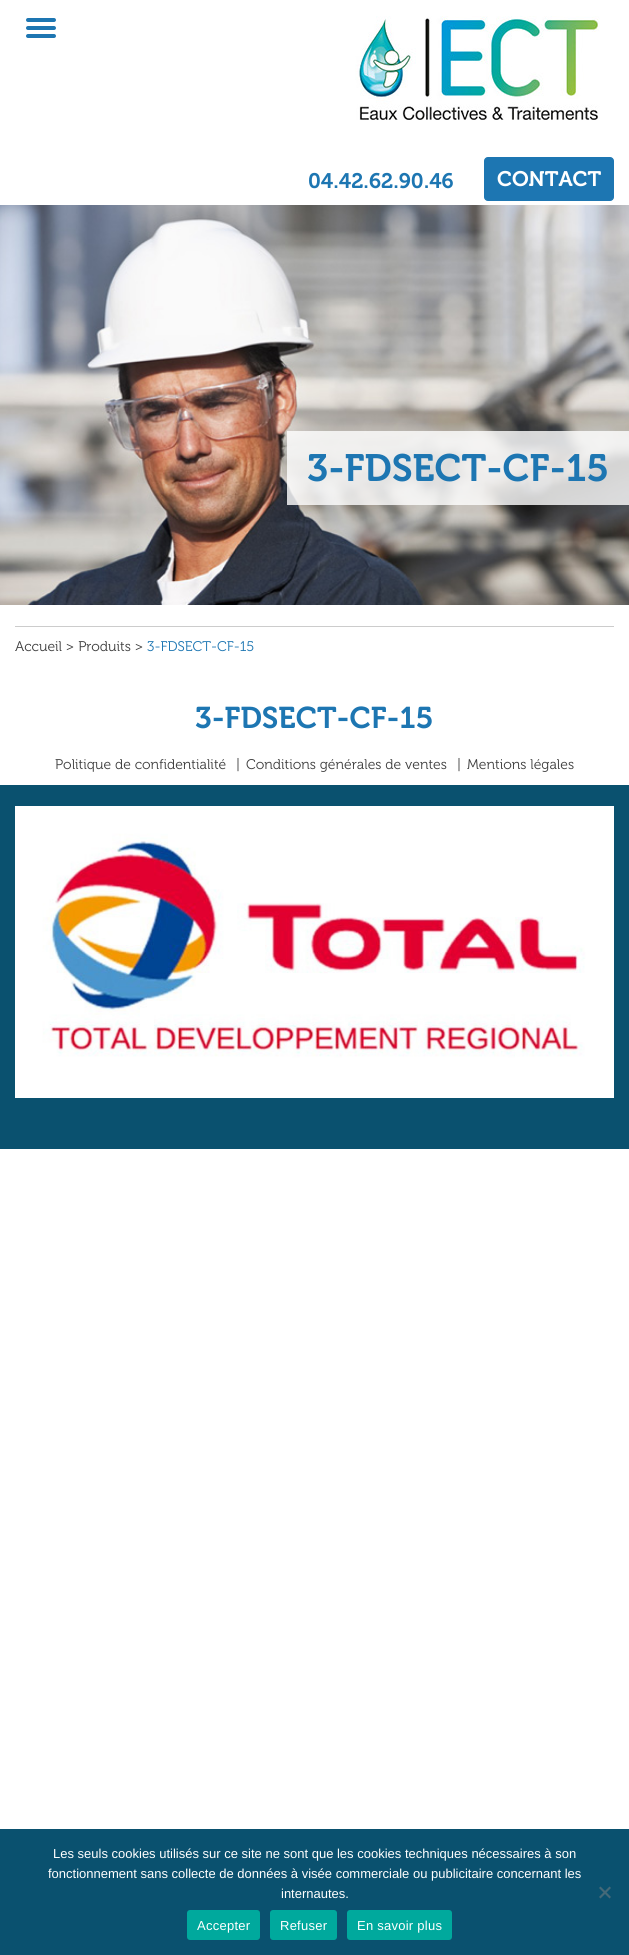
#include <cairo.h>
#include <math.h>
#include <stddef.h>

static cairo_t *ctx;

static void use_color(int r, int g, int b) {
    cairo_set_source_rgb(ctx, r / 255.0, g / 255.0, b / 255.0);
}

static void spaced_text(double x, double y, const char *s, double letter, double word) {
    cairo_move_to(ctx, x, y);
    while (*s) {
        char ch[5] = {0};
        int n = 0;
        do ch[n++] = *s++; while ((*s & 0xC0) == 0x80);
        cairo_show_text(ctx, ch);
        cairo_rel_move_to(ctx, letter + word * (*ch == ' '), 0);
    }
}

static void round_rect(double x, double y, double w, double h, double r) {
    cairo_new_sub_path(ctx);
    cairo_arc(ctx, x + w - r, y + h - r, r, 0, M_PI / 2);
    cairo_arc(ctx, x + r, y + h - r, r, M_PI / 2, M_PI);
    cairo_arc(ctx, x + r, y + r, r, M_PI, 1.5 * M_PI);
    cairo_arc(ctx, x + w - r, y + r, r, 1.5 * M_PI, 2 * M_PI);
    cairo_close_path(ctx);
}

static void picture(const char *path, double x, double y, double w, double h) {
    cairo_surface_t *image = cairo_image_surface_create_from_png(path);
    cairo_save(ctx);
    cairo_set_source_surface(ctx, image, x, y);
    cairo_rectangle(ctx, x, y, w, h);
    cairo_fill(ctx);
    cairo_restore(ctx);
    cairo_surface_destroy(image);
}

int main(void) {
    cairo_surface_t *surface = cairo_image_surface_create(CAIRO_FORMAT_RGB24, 629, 1955);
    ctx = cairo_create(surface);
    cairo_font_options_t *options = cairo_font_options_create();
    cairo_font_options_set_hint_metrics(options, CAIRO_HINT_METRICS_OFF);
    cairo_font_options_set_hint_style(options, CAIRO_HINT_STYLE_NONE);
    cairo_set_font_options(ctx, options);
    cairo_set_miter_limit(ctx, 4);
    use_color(255, 255, 255);
    cairo_paint(ctx);
    use_color(29, 118, 178);
    round_rect(26, 18, 30, 4, 2);
    cairo_fill(ctx);
    round_rect(26, 26, 30, 4, 2);
    cairo_fill(ctx);
    round_rect(26, 34, 30, 4, 2);
    cairo_fill(ctx);
    picture("img1.png", 355, 16, 245, 104);
    cairo_select_font_face(ctx, "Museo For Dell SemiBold", CAIRO_FONT_SLANT_NORMAL, CAIRO_FONT_WEIGHT_NORMAL);
    cairo_set_font_size(ctx, 21);
    cairo_move_to(ctx, 308, 188);
    cairo_show_text(ctx, "04.42.62.90.46");
    round_rect(484.5, 157.5, 129, 43, 3.5);
    cairo_fill_preserve(ctx);
    cairo_set_line_width(ctx, 1);
    cairo_stroke(ctx);
    use_color(255, 255, 255);
    cairo_move_to(ctx, 497, 186);
    cairo_show_text(ctx, "CONTACT");
    picture("img2.png", 0, 205, 629, 400);
    cairo_set_source_rgba(ctx, 1, 1, 1, 0.8);
    cairo_rectangle(ctx, 287, 431, 342, 74);
    cairo_fill(ctx);
    cairo_set_font_size(ctx, 38);
    use_color(29, 118, 178);
    cairo_move_to(ctx, 307, 481);
    cairo_show_text(ctx, "3-FDSECT-CF-15");
    use_color(204, 204, 204);
    cairo_rectangle(ctx, 15, 626, 599, 1);
    cairo_fill(ctx);
    cairo_select_font_face(ctx, "Museo For Dell Light", CAIRO_FONT_SLANT_NORMAL, CAIRO_FONT_WEIGHT_NORMAL);
    cairo_set_font_size(ctx, 14);
    use_color(61, 61, 61);
    cairo_move_to(ctx, 15, 651);
    cairo_show_text(ctx, "Accueil > Produits >");
    use_color(29, 118, 178);
    cairo_move_to(ctx, 147, 651);
    cairo_show_text(ctx, "3-FDSECT-CF-15");
    cairo_select_font_face(ctx, "Museo For Dell SemiBold", CAIRO_FONT_SLANT_NORMAL, CAIRO_FONT_WEIGHT_NORMAL);
    cairo_set_font_size(ctx, 30);
    cairo_move_to(ctx, 195, 728);
    cairo_show_text(ctx, "3-FDSECT-CF-15");
    cairo_select_font_face(ctx, "Museo For Dell Light", CAIRO_FONT_SLANT_NORMAL, CAIRO_FONT_WEIGHT_NORMAL);
    cairo_set_font_size(ctx, 14);
    use_color(61, 61, 61);
    cairo_move_to(ctx, 55, 769);
    cairo_show_text(ctx, "Politique de confidentialité");
    cairo_move_to(ctx, 236, 769);
    cairo_show_text(ctx, "|");
    cairo_move_to(ctx, 246, 769);
    cairo_show_text(ctx, "Conditions générales de ventes");
    cairo_move_to(ctx, 457, 769);
    cairo_show_text(ctx, "|");
    cairo_move_to(ctx, 467, 769);
    cairo_show_text(ctx, "Mentions légales");
    use_color(10, 81, 111);
    cairo_rectangle(ctx, 0, 785, 629, 364);
    cairo_fill(ctx);
    picture("img3.png", 15, 806, 599, 292);
    cairo_rectangle(ctx, 0, 1829, 629, 126);
    cairo_fill(ctx);
    cairo_select_font_face(ctx, "Liberation Sans", CAIRO_FONT_SLANT_NORMAL, CAIRO_FONT_WEIGHT_NORMAL);
    cairo_set_font_size(ctx, 13);
    use_color(255, 255, 255);
    cairo_move_to(ctx, 53, 1858);
    cairo_show_text(ctx, "Les seuls cookies utilisés sur ce site ne sont que les cookies techniques nécessaires à son");
    cairo_move_to(ctx, 48, 1878);
    cairo_show_text(ctx, "fonctionnement sans collecte de données à visée commerciale ou publicitaire concernant les");
    cairo_move_to(ctx, 281, 1898);
    cairo_show_text(ctx, "internautes.");
    use_color(69, 105, 120);
    cairo_new_path(ctx);
    cairo_move_to(ctx, 609.5, 1886.5);
    cairo_line_to(ctx, 611, 1888);
    cairo_line_to(ctx, 600.5, 1898.5);
    cairo_line_to(ctx, 599, 1897);
    cairo_close_path(ctx);
    cairo_fill(ctx);
    cairo_new_path(ctx);
    cairo_move_to(ctx, 599, 1888);
    cairo_line_to(ctx, 600.5, 1886.5);
    cairo_line_to(ctx, 611, 1897);
    cairo_line_to(ctx, 609.5, 1898.5);
    cairo_close_path(ctx);
    cairo_fill(ctx);
    use_color(0, 169, 157);
    round_rect(187, 1910, 73, 30, 3);
    cairo_fill(ctx);
    use_color(255, 255, 255);
    spaced_text(197, 1930, "Accepter", 0.25, 0);
    use_color(0, 169, 157);
    round_rect(270, 1910, 67, 30, 3);
    cairo_fill(ctx);
    use_color(255, 255, 255);
    spaced_text(280, 1930, "Refuser", 0.25, 0);
    use_color(0, 169, 157);
    round_rect(347, 1910, 105, 30, 3);
    cairo_fill(ctx);
    use_color(255, 255, 255);
    spaced_text(357, 1930, "En savoir plus", 0.25, 0);
    cairo_surface_write_to_png(surface, "result.png");
    cairo_font_options_destroy(options);
    cairo_destroy(ctx);
    cairo_surface_destroy(surface);
    return 0;
}
